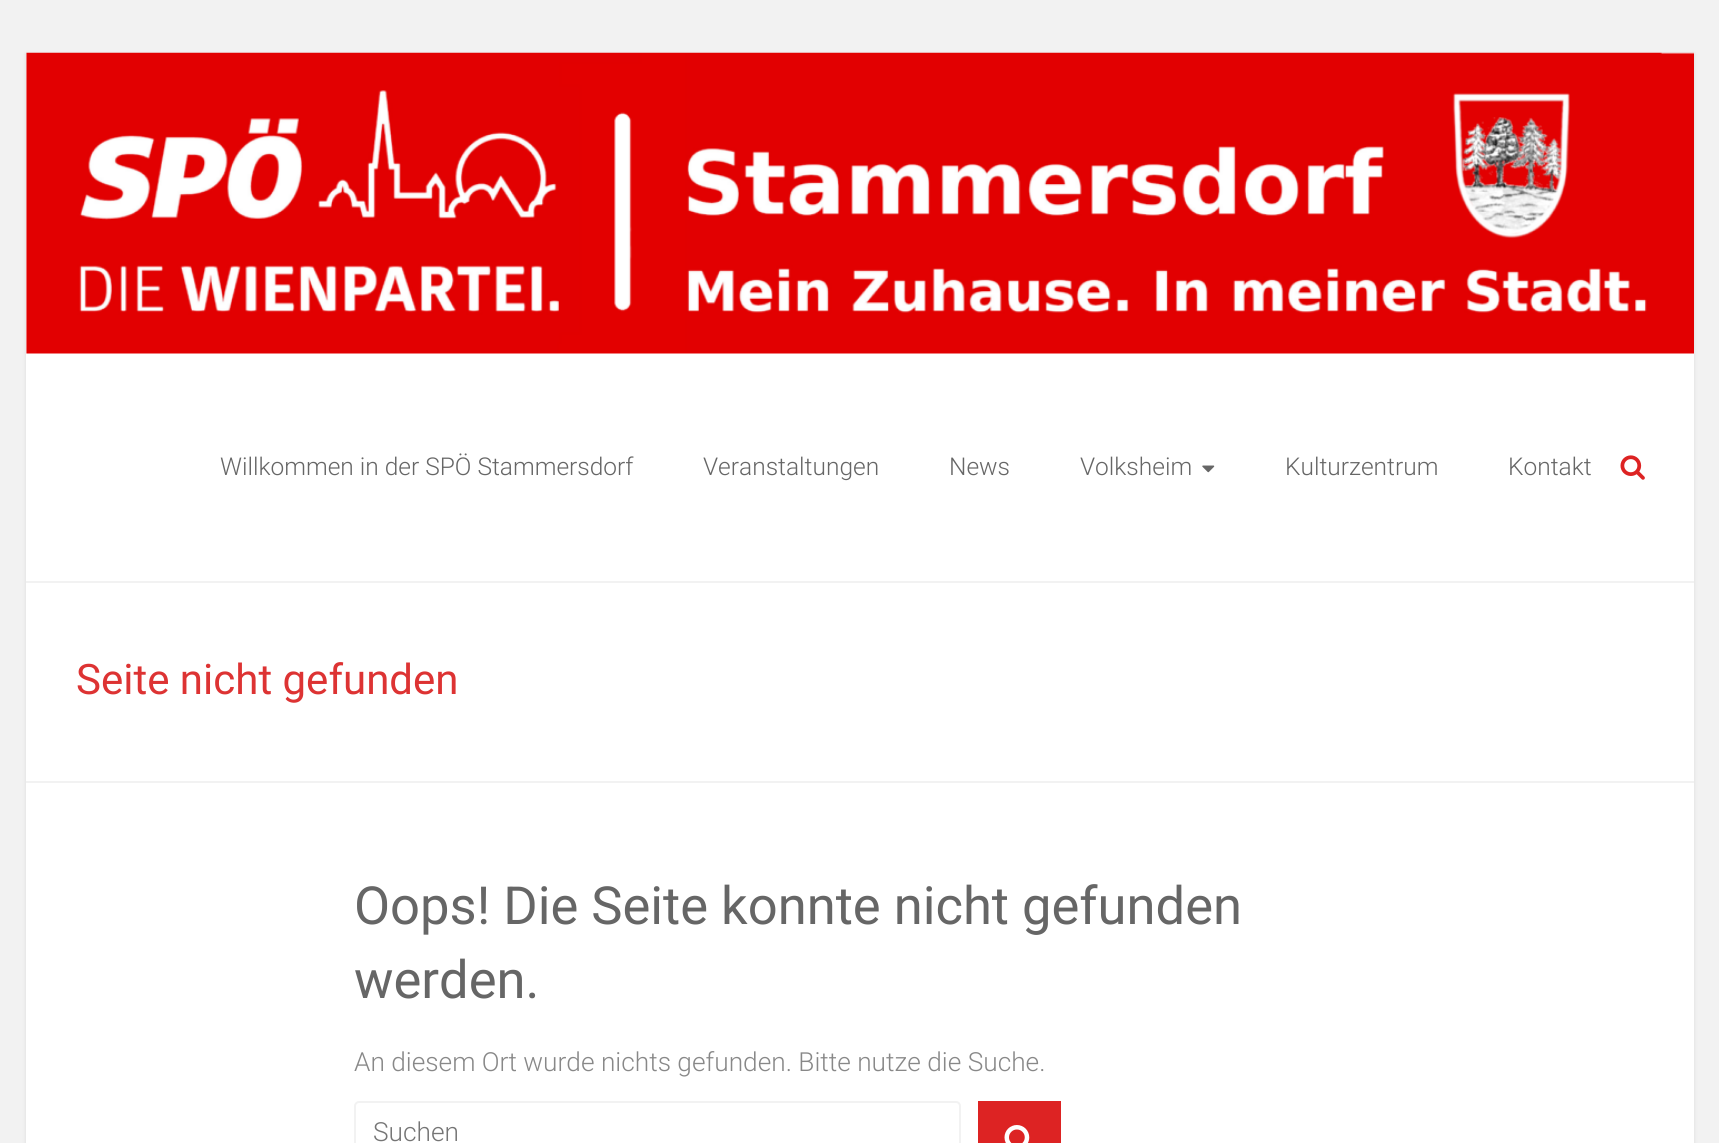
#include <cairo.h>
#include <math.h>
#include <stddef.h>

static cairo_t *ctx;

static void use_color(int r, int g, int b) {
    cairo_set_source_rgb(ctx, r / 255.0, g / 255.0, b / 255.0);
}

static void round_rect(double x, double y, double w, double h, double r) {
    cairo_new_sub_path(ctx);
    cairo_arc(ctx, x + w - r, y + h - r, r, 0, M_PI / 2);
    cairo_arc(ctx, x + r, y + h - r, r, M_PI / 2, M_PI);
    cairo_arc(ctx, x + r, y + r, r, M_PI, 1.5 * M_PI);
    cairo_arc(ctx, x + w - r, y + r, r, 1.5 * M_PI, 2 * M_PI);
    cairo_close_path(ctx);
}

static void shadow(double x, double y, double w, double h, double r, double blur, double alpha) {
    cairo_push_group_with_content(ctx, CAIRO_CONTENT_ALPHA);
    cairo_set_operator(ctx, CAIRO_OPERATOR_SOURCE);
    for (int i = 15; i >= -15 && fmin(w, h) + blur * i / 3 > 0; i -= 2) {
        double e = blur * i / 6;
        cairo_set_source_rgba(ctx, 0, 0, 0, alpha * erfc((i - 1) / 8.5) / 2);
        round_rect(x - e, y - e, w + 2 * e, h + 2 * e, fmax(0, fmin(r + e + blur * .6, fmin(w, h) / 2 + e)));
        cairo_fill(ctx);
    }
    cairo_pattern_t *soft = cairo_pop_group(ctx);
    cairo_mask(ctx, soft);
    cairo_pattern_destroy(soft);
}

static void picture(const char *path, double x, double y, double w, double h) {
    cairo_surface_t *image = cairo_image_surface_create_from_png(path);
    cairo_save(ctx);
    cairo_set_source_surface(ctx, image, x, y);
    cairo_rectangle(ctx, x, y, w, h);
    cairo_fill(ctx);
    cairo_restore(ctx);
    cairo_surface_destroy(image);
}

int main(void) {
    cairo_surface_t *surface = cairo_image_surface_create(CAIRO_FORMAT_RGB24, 1719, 1143);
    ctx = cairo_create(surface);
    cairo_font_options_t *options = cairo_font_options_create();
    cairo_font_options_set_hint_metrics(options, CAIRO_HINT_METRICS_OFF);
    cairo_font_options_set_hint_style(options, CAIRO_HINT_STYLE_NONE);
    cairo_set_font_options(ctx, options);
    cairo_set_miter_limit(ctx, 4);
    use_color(242, 242, 242);
    cairo_paint(ctx);
    use_color(0, 0, 0);
    shadow(26, 54, 1668, 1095, 0, 2, 0.1);
    use_color(255, 255, 255);
    cairo_rectangle(ctx, 26, 53, 1668, 1090);
    cairo_fill(ctx);
    use_color(242, 242, 242);
    cairo_rectangle(ctx, 26, 581, 1668, 2);
    cairo_fill(ctx);
    picture("img1.png", 26, 52, 1668, 302);
    cairo_select_font_face(ctx, "Roboto Light", CAIRO_FONT_SLANT_NORMAL, CAIRO_FONT_WEIGHT_NORMAL);
    cairo_set_font_size(ctx, 24.5);
    use_color(102, 102, 102);
    cairo_move_to(ctx, 220, 475);
    cairo_show_text(ctx, "Willkommen in der SPÖ Stammersdorf");
    cairo_move_to(ctx, 703, 475);
    cairo_show_text(ctx, "Veranstaltungen");
    cairo_move_to(ctx, 949, 475);
    cairo_show_text(ctx, "News");
    cairo_move_to(ctx, 1080, 475);
    cairo_show_text(ctx, "Volksheim");
    picture("img2.png", 1202, 465, 13, 8);
    cairo_move_to(ctx, 1285, 475);
    cairo_show_text(ctx, "Kulturzentrum");
    cairo_move_to(ctx, 1508, 475);
    cairo_show_text(ctx, "Kontakt");
    picture("img3.png", 1620, 455, 25, 25);
    use_color(242, 242, 242);
    cairo_rectangle(ctx, 26, 781, 1668, 2);
    cairo_fill(ctx);
    cairo_select_font_face(ctx, "Roboto", CAIRO_FONT_SLANT_NORMAL, CAIRO_FONT_WEIGHT_NORMAL);
    cairo_set_font_size(ctx, 42);
    use_color(221, 51, 51);
    cairo_move_to(ctx, 76, 694);
    cairo_show_text(ctx, "Seite nicht gefunden");
    cairo_set_font_size(ctx, 52.5);
    use_color(102, 102, 102);
    cairo_move_to(ctx, 354, 924);
    cairo_show_text(ctx, "Oops! Die Seite konnte nicht gefunden");
    cairo_move_to(ctx, 354, 998);
    cairo_show_text(ctx, "werden.");
    cairo_select_font_face(ctx, "Roboto Light", CAIRO_FONT_SLANT_NORMAL, CAIRO_FONT_WEIGHT_NORMAL);
    cairo_set_font_size(ctx, 26.25);
    use_color(136, 136, 136);
    cairo_move_to(ctx, 354, 1071);
    cairo_show_text(ctx, "An diesem Ort wurde nichts gefunden. Bitte nutze die Suche.");
    round_rect(355, 1102, 605, 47, 4);
    use_color(242, 242, 242);
    cairo_stroke(ctx);
    use_color(117, 117, 117);
    cairo_move_to(ctx, 373, 1141);
    cairo_show_text(ctx, "Suchen");
    use_color(221, 35, 35);
    cairo_rectangle(ctx, 978, 1101, 83, 42);
    cairo_fill(ctx);
    picture("img4.png", 1004, 1125, 26, 18);
    cairo_surface_write_to_png(surface, "result.png");
    cairo_font_options_destroy(options);
    cairo_destroy(ctx);
    cairo_surface_destroy(surface);
    return 0;
}
